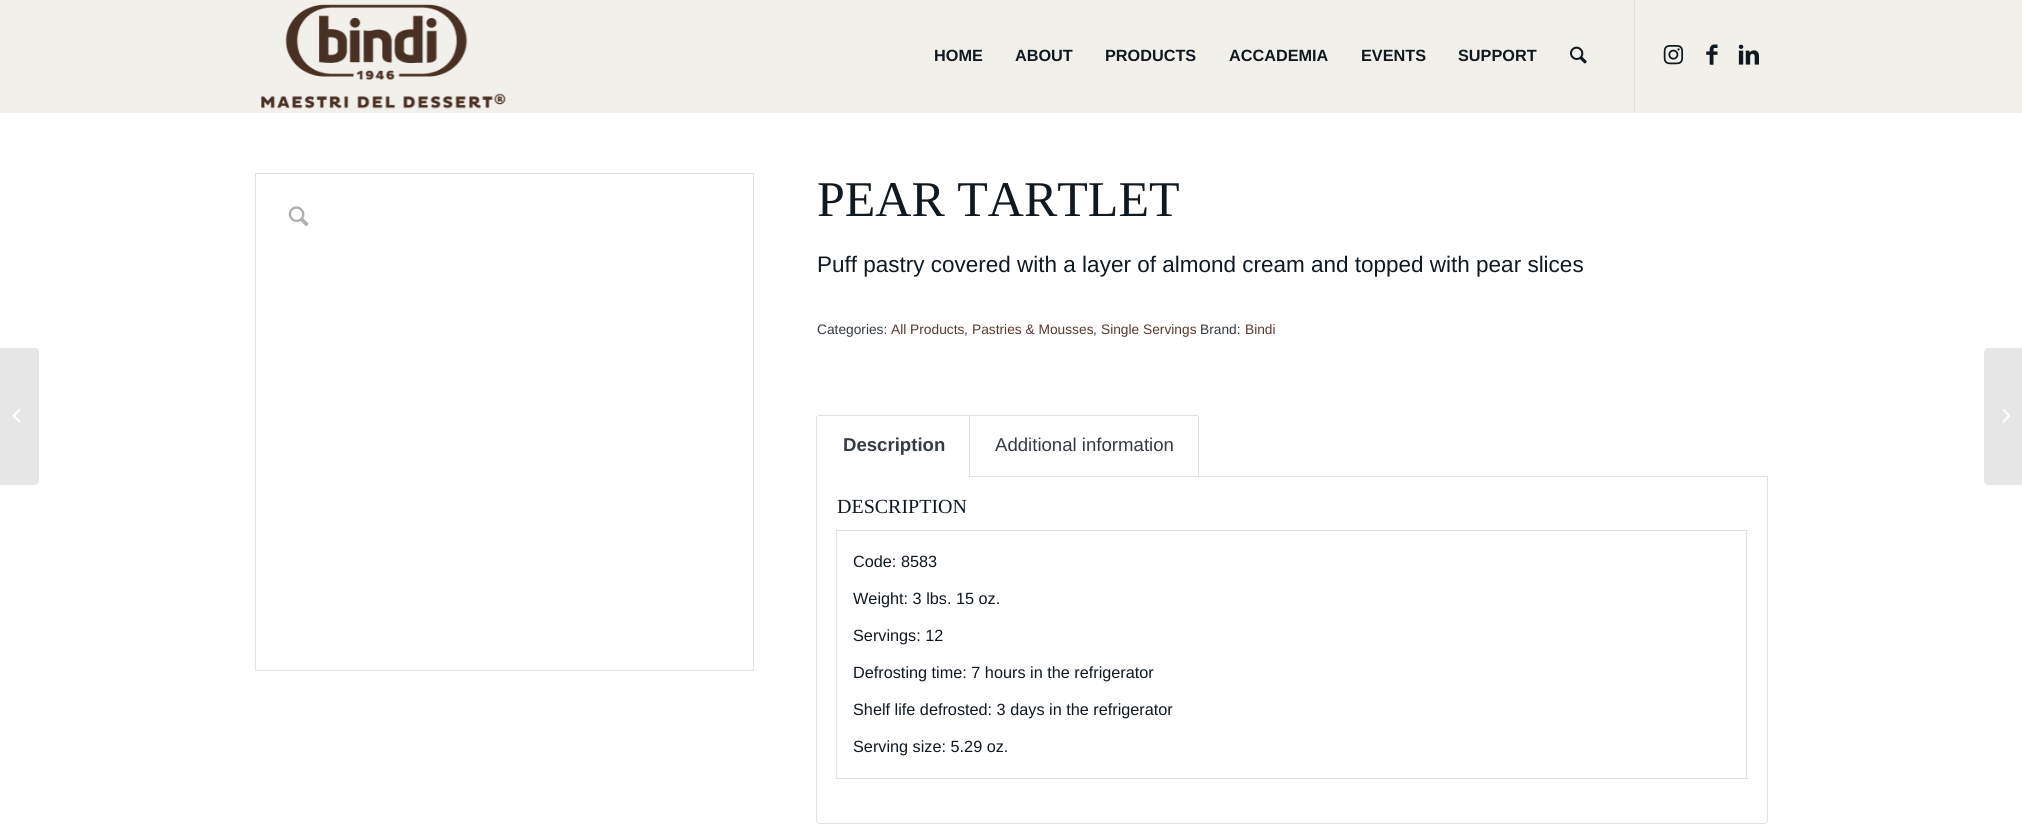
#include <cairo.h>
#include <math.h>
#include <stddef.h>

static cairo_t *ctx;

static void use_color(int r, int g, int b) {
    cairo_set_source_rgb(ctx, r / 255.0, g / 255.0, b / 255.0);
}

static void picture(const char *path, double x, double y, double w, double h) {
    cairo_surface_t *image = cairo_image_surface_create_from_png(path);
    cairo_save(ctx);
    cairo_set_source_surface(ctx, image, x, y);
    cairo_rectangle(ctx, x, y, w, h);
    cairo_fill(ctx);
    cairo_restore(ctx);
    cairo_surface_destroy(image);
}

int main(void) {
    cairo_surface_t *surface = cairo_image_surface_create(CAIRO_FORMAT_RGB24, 2022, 831);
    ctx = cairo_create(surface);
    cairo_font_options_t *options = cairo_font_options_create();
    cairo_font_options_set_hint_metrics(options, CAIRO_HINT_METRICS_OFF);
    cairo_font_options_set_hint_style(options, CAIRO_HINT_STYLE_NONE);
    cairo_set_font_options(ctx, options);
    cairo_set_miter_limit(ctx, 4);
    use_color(255, 255, 255);
    cairo_paint(ctx);
    use_color(242, 240, 235);
    cairo_rectangle(ctx, 0, 0, 2022, 113);
    cairo_fill(ctx);
    picture("img1.png", 261, 4, 245, 105);
    use_color(225, 225, 225);
    cairo_rectangle(ctx, 1634, 0, 1, 113);
    cairo_fill(ctx);
    cairo_select_font_face(ctx, "Liberation Sans", CAIRO_FONT_SLANT_NORMAL, CAIRO_FONT_WEIGHT_BOLD);
    cairo_set_font_size(ctx, 16.25);
    use_color(16, 24, 32);
    cairo_move_to(ctx, 934, 61);
    cairo_show_text(ctx, "HOME");
    cairo_move_to(ctx, 1015, 61);
    cairo_show_text(ctx, "ABOUT");
    cairo_move_to(ctx, 1105, 61);
    cairo_show_text(ctx, "PRODUCTS");
    cairo_move_to(ctx, 1229, 61);
    cairo_show_text(ctx, "ACCADEMIA");
    cairo_move_to(ctx, 1361, 61);
    cairo_show_text(ctx, "EVENTS");
    cairo_move_to(ctx, 1458, 61);
    cairo_show_text(ctx, "SUPPORT");
    picture("img2.png", 1570, 46, 17, 18);
    picture("img3.png", 1663, 45, 21, 20);
    picture("img4.png", 1706, 44, 12, 21);
    picture("img5.png", 1738, 44, 21, 21);
    use_color(230, 230, 230);
    cairo_new_path(ctx);
    cairo_move_to(ctx, 0, 348);
    cairo_line_to(ctx, 34, 348);
    cairo_curve_to(ctx, 37, 348, 39, 350, 39, 353);
    cairo_line_to(ctx, 39, 480);
    cairo_curve_to(ctx, 39, 483, 37, 485, 34, 485);
    cairo_line_to(ctx, 0, 485);
    cairo_close_path(ctx);
    cairo_fill(ctx);
    picture("img6.png", 12, 409, 9, 14);
    cairo_rectangle(ctx, 255.5, 173.5, 498, 497);
    use_color(225, 225, 225);
    cairo_set_line_width(ctx, 1);
    cairo_stroke(ctx);
    picture("img7.png", 288, 206, 21, 21);
    cairo_select_font_face(ctx, "Liberation Serif", CAIRO_FONT_SLANT_NORMAL, CAIRO_FONT_WEIGHT_NORMAL);
    cairo_set_font_size(ctx, 50);
    use_color(16, 24, 32);
    cairo_move_to(ctx, 817, 216);
    cairo_show_text(ctx, "PEAR TARTLET");
    cairo_select_font_face(ctx, "Liberation Sans", CAIRO_FONT_SLANT_NORMAL, CAIRO_FONT_WEIGHT_NORMAL);
    cairo_set_font_size(ctx, 22.5);
    cairo_move_to(ctx, 817, 272);
    cairo_show_text(ctx, "Puff pastry covered with a layer of almond cream and topped with pear slices");
    cairo_set_font_size(ctx, 13.75);
    use_color(53, 59, 66);
    cairo_move_to(ctx, 817, 334);
    cairo_show_text(ctx, "Categories:");
    use_color(89, 57, 46);
    cairo_move_to(ctx, 891, 334);
    cairo_show_text(ctx, "All Products");
    use_color(53, 59, 66);
    cairo_move_to(ctx, 964, 334);
    cairo_show_text(ctx, ",");
    use_color(89, 57, 46);
    cairo_move_to(ctx, 972, 334);
    cairo_show_text(ctx, "Pastries & Mousses");
    use_color(53, 59, 66);
    cairo_move_to(ctx, 1093, 334);
    cairo_show_text(ctx, ",");
    use_color(89, 57, 46);
    cairo_move_to(ctx, 1101, 334);
    cairo_show_text(ctx, "Single Servings");
    use_color(53, 59, 66);
    cairo_move_to(ctx, 1200, 334);
    cairo_show_text(ctx, "Brand:");
    use_color(89, 57, 46);
    cairo_move_to(ctx, 1245, 334);
    cairo_show_text(ctx, "Bindi");
    cairo_new_path(ctx);
    cairo_move_to(ctx, 816.5, 476.5);
    cairo_line_to(ctx, 1767.5, 476.5);
    cairo_line_to(ctx, 1767.5, 820);
    cairo_curve_to(ctx, 1767.5, 822, 1766, 823.5, 1764, 823.5);
    cairo_line_to(ctx, 820, 823.5);
    cairo_curve_to(ctx, 818, 823.5, 816.5, 822, 816.5, 820);
    cairo_close_path(ctx);
    use_color(225, 225, 225);
    cairo_stroke(ctx);
    use_color(255, 255, 255);
    cairo_rectangle(ctx, 816, 476, 153, 2);
    cairo_fill(ctx);
    use_color(225, 225, 225);
    cairo_rectangle(ctx, 818, 415, 380, 1);
    cairo_fill(ctx);
    cairo_rectangle(ctx, 969, 415, 1, 63);
    cairo_fill(ctx);
    cairo_rectangle(ctx, 816, 416, 1, 62);
    cairo_fill(ctx);
    cairo_select_font_face(ctx, "Liberation Sans", CAIRO_FONT_SLANT_NORMAL, CAIRO_FONT_WEIGHT_BOLD);
    cairo_set_font_size(ctx, 18.6);
    use_color(53, 59, 66);
    cairo_move_to(ctx, 843, 451);
    cairo_show_text(ctx, "Description");
    use_color(225, 225, 225);
    cairo_rectangle(ctx, 1198, 416, 1, 62);
    cairo_fill(ctx);
    cairo_select_font_face(ctx, "Liberation Sans", CAIRO_FONT_SLANT_NORMAL, CAIRO_FONT_WEIGHT_NORMAL);
    use_color(53, 59, 66);
    cairo_move_to(ctx, 995, 451);
    cairo_show_text(ctx, "Additional information");
    cairo_select_font_face(ctx, "Liberation Serif", CAIRO_FONT_SLANT_NORMAL, CAIRO_FONT_WEIGHT_NORMAL);
    cairo_set_font_size(ctx, 20);
    use_color(16, 24, 32);
    cairo_move_to(ctx, 837, 513);
    cairo_show_text(ctx, "DESCRIPTION");
    use_color(225, 225, 225);
    cairo_rectangle(ctx, 836, 530, 912, 1);
    cairo_fill(ctx);
    cairo_rectangle(ctx, 1746, 530, 1, 249);
    cairo_fill(ctx);
    cairo_rectangle(ctx, 836, 778, 912, 1);
    cairo_fill(ctx);
    cairo_rectangle(ctx, 836, 530, 1, 249);
    cairo_fill(ctx);
    cairo_select_font_face(ctx, "Liberation Sans", CAIRO_FONT_SLANT_NORMAL, CAIRO_FONT_WEIGHT_NORMAL);
    cairo_set_font_size(ctx, 16.25);
    use_color(16, 24, 32);
    cairo_move_to(ctx, 853, 567);
    cairo_show_text(ctx, "Code: 8583");
    cairo_move_to(ctx, 853, 604);
    cairo_show_text(ctx, "Weight: 3 lbs. 15 oz.");
    cairo_move_to(ctx, 853, 641);
    cairo_show_text(ctx, "Servings: 12");
    cairo_move_to(ctx, 853, 678);
    cairo_show_text(ctx, "Defrosting time: 7 hours in the refrigerator");
    cairo_move_to(ctx, 853, 715);
    cairo_show_text(ctx, "Shelf life defrosted: 3 days in the refrigerator");
    cairo_move_to(ctx, 853, 752);
    cairo_show_text(ctx, "Serving size: 5.29 oz.");
    use_color(230, 230, 230);
    cairo_new_path(ctx);
    cairo_move_to(ctx, 1989, 348);
    cairo_line_to(ctx, 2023, 348);
    cairo_line_to(ctx, 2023, 485);
    cairo_line_to(ctx, 1989, 485);
    cairo_curve_to(ctx, 1986, 485, 1984, 483, 1984, 480);
    cairo_line_to(ctx, 1984, 353);
    cairo_curve_to(ctx, 1984, 350, 1986, 348, 1989, 348);
    cairo_close_path(ctx);
    cairo_fill(ctx);
    picture("img8.png", 2002, 409, 9, 14);
    cairo_surface_write_to_png(surface, "result.png");
    cairo_font_options_destroy(options);
    cairo_destroy(ctx);
    cairo_surface_destroy(surface);
    return 0;
}
